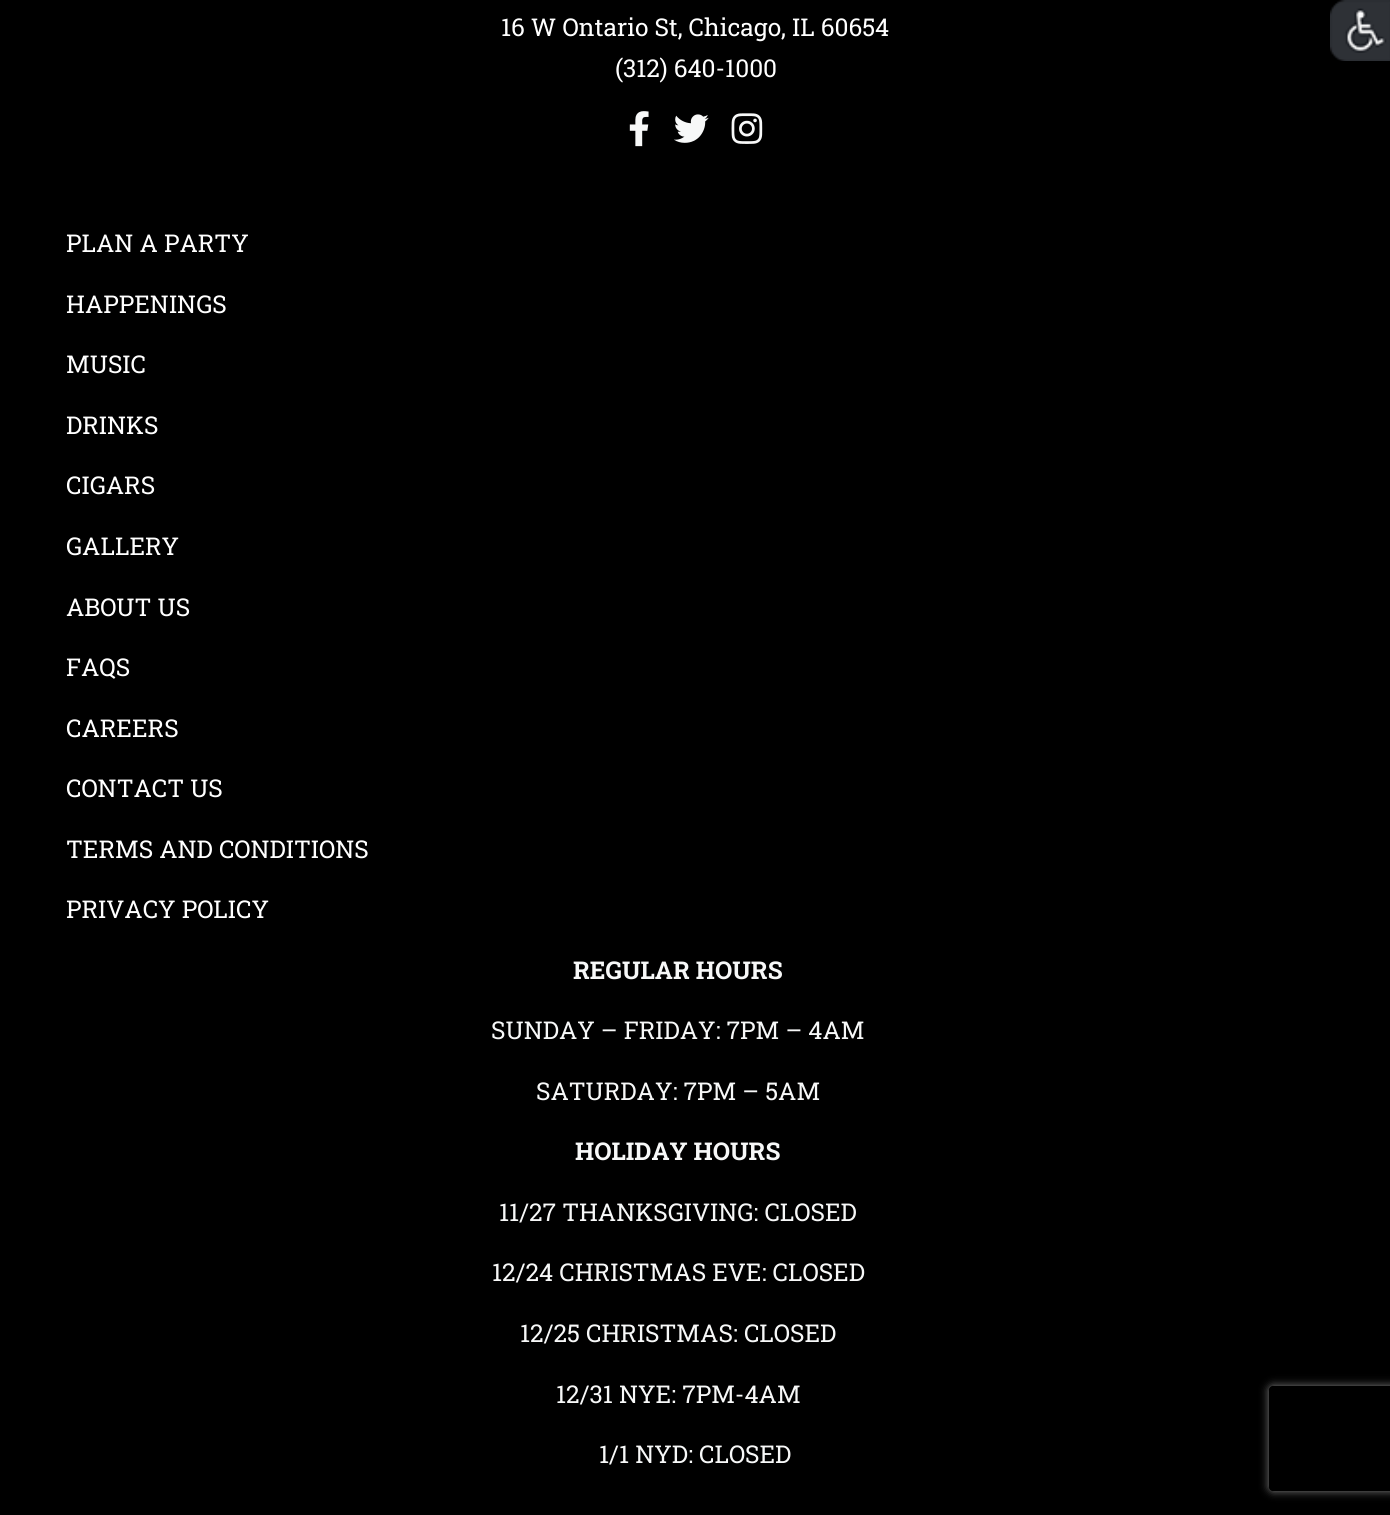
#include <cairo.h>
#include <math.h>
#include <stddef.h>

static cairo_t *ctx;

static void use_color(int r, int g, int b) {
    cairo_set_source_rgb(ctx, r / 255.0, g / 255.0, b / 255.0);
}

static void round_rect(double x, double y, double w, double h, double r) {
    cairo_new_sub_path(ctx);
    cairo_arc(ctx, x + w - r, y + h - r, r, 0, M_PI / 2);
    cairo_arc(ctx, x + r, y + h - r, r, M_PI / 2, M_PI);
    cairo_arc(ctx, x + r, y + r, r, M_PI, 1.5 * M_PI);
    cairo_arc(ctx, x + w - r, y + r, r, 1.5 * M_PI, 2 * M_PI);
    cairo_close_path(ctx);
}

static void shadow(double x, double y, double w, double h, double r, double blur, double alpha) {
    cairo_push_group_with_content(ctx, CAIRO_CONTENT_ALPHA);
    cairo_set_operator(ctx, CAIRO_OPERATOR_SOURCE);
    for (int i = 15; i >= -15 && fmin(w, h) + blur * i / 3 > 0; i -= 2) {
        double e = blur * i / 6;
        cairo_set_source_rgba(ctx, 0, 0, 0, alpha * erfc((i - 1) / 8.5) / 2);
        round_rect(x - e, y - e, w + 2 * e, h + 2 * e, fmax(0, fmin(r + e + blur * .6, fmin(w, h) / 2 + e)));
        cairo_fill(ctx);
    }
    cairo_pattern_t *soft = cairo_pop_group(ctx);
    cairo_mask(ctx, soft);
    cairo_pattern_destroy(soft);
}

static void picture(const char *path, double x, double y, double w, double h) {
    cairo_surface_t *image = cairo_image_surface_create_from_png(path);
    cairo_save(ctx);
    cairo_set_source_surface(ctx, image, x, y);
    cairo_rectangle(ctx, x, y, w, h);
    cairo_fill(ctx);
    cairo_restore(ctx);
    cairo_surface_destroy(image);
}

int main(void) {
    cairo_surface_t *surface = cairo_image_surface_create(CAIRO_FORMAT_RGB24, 1390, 1515);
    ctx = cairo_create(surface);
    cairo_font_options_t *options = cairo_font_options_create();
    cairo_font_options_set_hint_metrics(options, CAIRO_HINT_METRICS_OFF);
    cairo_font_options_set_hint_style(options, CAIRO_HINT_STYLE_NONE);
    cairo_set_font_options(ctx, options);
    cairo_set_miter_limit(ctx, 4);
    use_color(0, 0, 0);
    cairo_paint(ctx);
    cairo_select_font_face(ctx, "Roboto Slab", CAIRO_FONT_SLANT_NORMAL, CAIRO_FONT_WEIGHT_NORMAL);
    cairo_set_font_size(ctx, 24.5);
    use_color(255, 255, 255);
    cairo_move_to(ctx, 501, 36);
    cairo_show_text(ctx, "16 W Ontario St, Chicago, IL 60654");
    cairo_move_to(ctx, 615, 77);
    cairo_show_text(ctx, "(312) 640-1000");
    picture("img1.png", 629, 111, 20, 36);
    picture("img2.png", 674, 114, 35, 29);
    picture("img3.png", 731, 113, 32, 31);
    cairo_move_to(ctx, 66, 252);
    cairo_show_text(ctx, "PLAN A PARTY");
    cairo_move_to(ctx, 66, 313);
    cairo_show_text(ctx, "HAPPENINGS");
    cairo_move_to(ctx, 66, 373);
    cairo_show_text(ctx, "MUSIC");
    cairo_move_to(ctx, 66, 434);
    cairo_show_text(ctx, "DRINKS");
    cairo_move_to(ctx, 66, 494);
    cairo_show_text(ctx, "CIGARS");
    cairo_move_to(ctx, 66, 555);
    cairo_show_text(ctx, "GALLERY");
    cairo_move_to(ctx, 66, 616);
    cairo_show_text(ctx, "ABOUT US");
    cairo_move_to(ctx, 66, 676);
    cairo_show_text(ctx, "FAQS");
    cairo_move_to(ctx, 66, 737);
    cairo_show_text(ctx, "CAREERS");
    cairo_move_to(ctx, 66, 797);
    cairo_show_text(ctx, "CONTACT US");
    cairo_move_to(ctx, 66, 858);
    cairo_show_text(ctx, "TERMS AND CONDITIONS");
    cairo_move_to(ctx, 66, 918);
    cairo_show_text(ctx, "PRIVACY POLICY");
    cairo_select_font_face(ctx, "Roboto Slab", CAIRO_FONT_SLANT_NORMAL, CAIRO_FONT_WEIGHT_BOLD);
    use_color(247, 248, 248);
    cairo_move_to(ctx, 573, 979);
    cairo_show_text(ctx, "REGULAR HOURS");
    cairo_select_font_face(ctx, "Roboto Slab", CAIRO_FONT_SLANT_NORMAL, CAIRO_FONT_WEIGHT_NORMAL);
    cairo_move_to(ctx, 491, 1039);
    cairo_show_text(ctx, "SUNDAY – FRIDAY: 7PM – 4AM");
    cairo_move_to(ctx, 536, 1100);
    cairo_show_text(ctx, "SATURDAY: 7PM – 5AM");
    cairo_select_font_face(ctx, "Roboto Slab", CAIRO_FONT_SLANT_NORMAL, CAIRO_FONT_WEIGHT_BOLD);
    cairo_move_to(ctx, 575, 1160);
    cairo_show_text(ctx, "HOLIDAY HOURS");
    cairo_select_font_face(ctx, "Roboto Slab", CAIRO_FONT_SLANT_NORMAL, CAIRO_FONT_WEIGHT_NORMAL);
    cairo_move_to(ctx, 499, 1221);
    cairo_show_text(ctx, "11/27 THANKSGIVING: CLOSED");
    cairo_move_to(ctx, 492, 1281);
    cairo_show_text(ctx, "12/24 CHRISTMAS EVE: CLOSED");
    cairo_move_to(ctx, 520, 1342);
    cairo_show_text(ctx, "12/25 CHRISTMAS: CLOSED");
    cairo_move_to(ctx, 556, 1403);
    cairo_show_text(ctx, "12/31 NYE: 7PM-4AM");
    cairo_move_to(ctx, 599, 1463);
    cairo_show_text(ctx, "1/1 NYD: CLOSED");
    picture("img4.png", 1330, 0, 60, 61);
    cairo_save(ctx);
    cairo_set_fill_rule(ctx, CAIRO_FILL_RULE_EVEN_ODD);
    cairo_new_path(ctx);
    cairo_move_to(ctx, 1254, 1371);
    cairo_line_to(ctx, 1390, 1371);
    cairo_line_to(ctx, 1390, 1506);
    cairo_line_to(ctx, 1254, 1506);
    cairo_close_path(ctx);
    cairo_move_to(ctx, 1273, 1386);
    cairo_line_to(ctx, 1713, 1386);
    cairo_curve_to(ctx, 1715, 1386, 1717, 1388, 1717, 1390);
    cairo_line_to(ctx, 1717, 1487);
    cairo_curve_to(ctx, 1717, 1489, 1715, 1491, 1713, 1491);
    cairo_line_to(ctx, 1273, 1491);
    cairo_curve_to(ctx, 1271, 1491, 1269, 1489, 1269, 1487);
    cairo_line_to(ctx, 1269, 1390);
    cairo_curve_to(ctx, 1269, 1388, 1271, 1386, 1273, 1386);
    cairo_close_path(ctx);
    cairo_clip(ctx);
    use_color(128, 128, 128);
    shadow(1269, 1386, 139, 105, 4, 4.5, 1);
    cairo_restore(ctx);
    cairo_surface_write_to_png(surface, "result.png");
    cairo_font_options_destroy(options);
    cairo_destroy(ctx);
    cairo_surface_destroy(surface);
    return 0;
}
